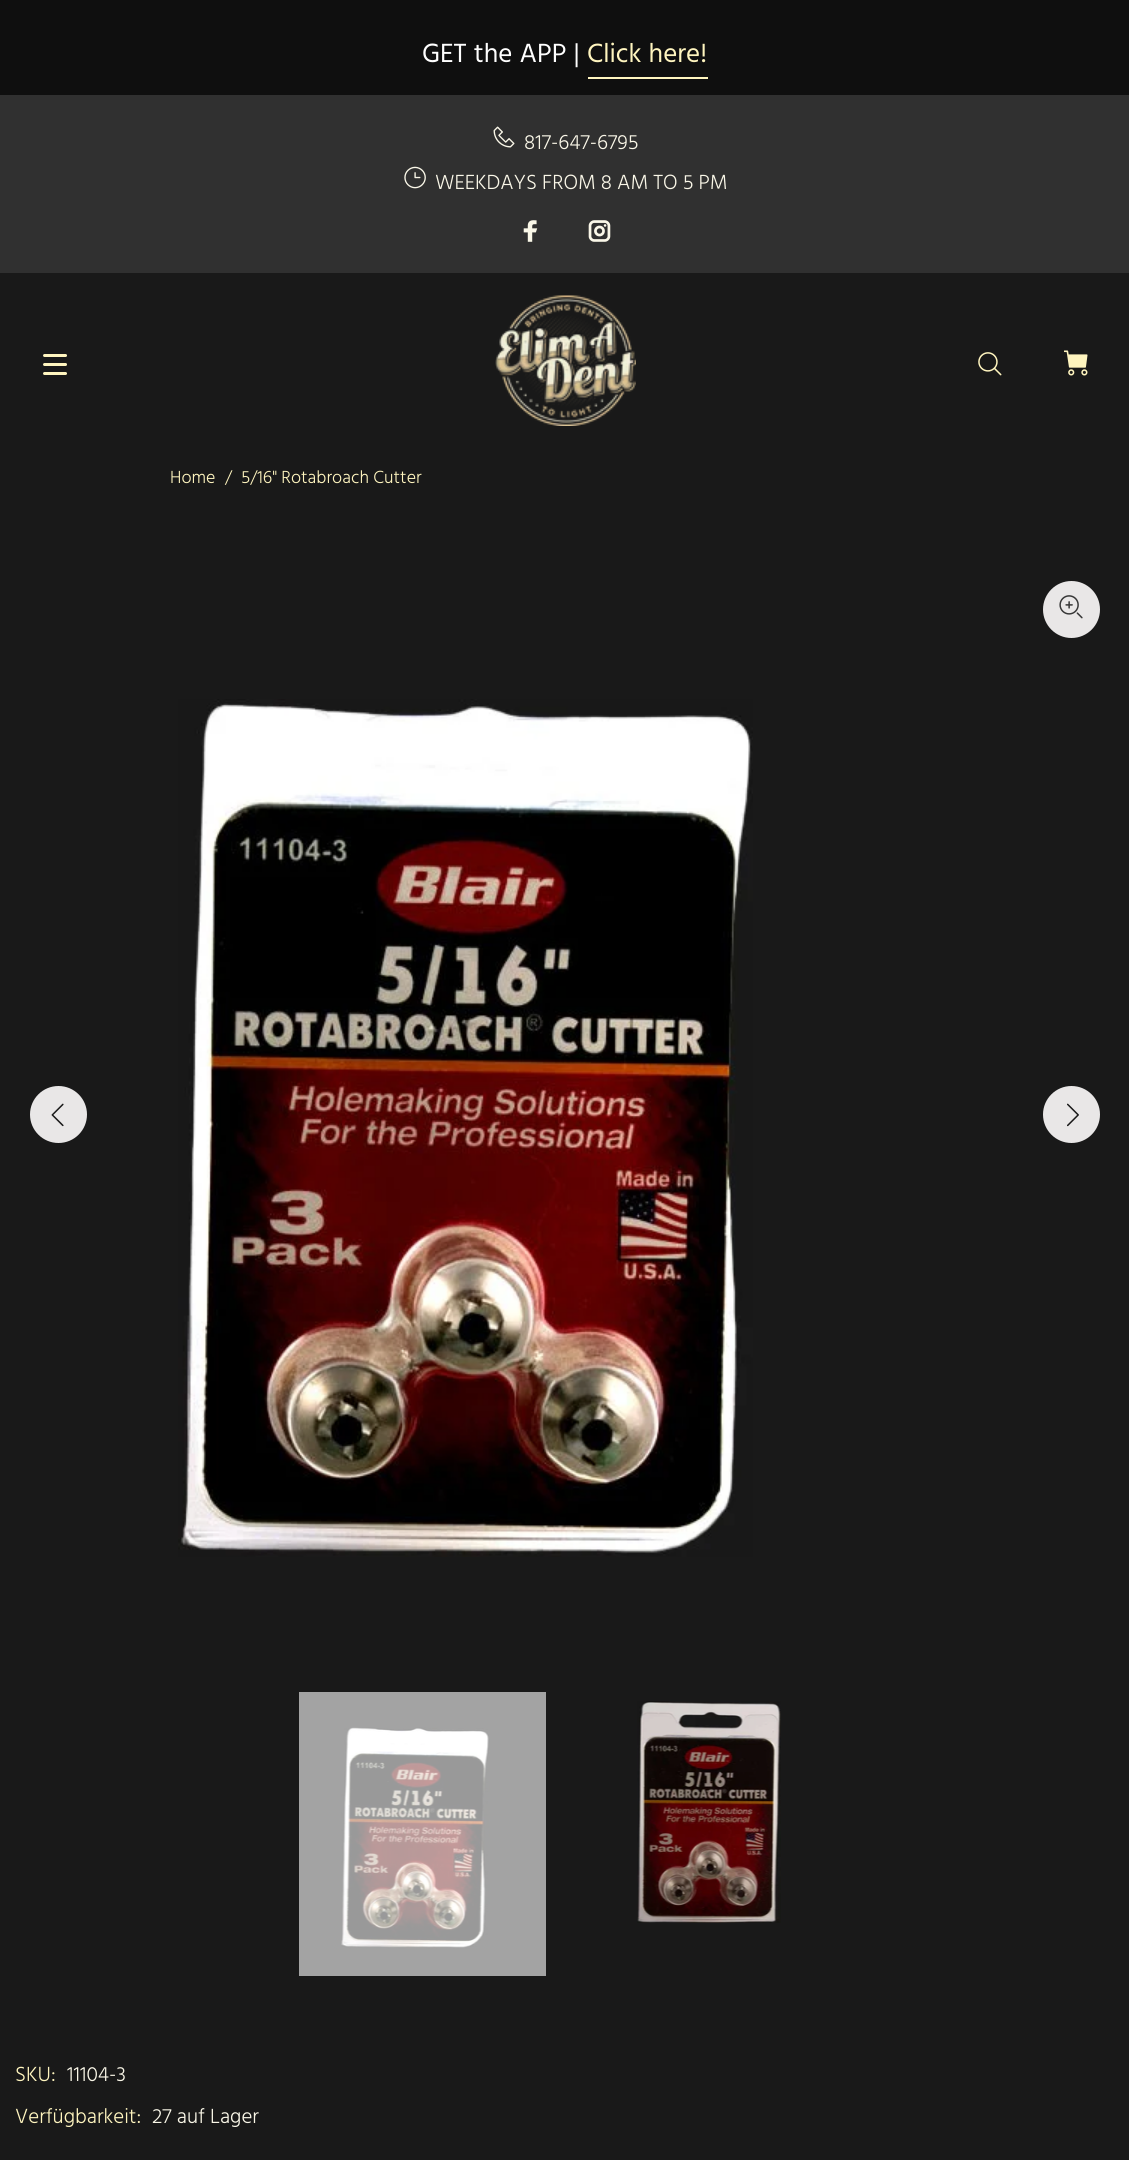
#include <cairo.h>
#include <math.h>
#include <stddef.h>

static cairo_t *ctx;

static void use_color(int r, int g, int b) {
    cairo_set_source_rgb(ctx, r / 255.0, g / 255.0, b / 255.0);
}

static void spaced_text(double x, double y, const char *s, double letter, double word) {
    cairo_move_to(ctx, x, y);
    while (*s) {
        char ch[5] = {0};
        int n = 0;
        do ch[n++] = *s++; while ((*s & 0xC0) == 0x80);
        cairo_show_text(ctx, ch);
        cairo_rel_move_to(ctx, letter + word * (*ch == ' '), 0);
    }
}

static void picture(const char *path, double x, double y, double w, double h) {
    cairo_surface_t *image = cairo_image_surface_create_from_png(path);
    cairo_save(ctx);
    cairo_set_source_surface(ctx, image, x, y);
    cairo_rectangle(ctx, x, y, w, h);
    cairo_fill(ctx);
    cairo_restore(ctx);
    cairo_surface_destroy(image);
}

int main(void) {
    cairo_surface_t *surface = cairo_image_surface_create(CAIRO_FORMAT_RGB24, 1129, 2160);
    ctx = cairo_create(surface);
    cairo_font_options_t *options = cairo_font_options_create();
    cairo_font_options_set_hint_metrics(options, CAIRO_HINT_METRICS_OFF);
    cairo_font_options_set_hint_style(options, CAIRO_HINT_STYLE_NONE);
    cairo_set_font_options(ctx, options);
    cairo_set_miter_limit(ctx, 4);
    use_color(25, 25, 25);
    cairo_paint(ctx);
    use_color(163, 163, 163);
    cairo_rectangle(ctx, 299, 1692, 247, 284);
    cairo_fill(ctx);
    use_color(15, 15, 15);
    cairo_rectangle(ctx, 0, 0, 1129, 95);
    cairo_fill(ctx);
    cairo_select_font_face(ctx, "Hind", CAIRO_FONT_SLANT_NORMAL, CAIRO_FONT_WEIGHT_NORMAL);
    cairo_set_font_size(ctx, 27);
    use_color(255, 255, 255);
    spaced_text(422, 62, "GET the APP |", 0, 0.5);
    use_color(255, 245, 191);
    spaced_text(587, 62, "Click here!", 0, 0.5);
    cairo_rectangle(ctx, 588, 77, 120, 2);
    cairo_fill(ctx);
    use_color(48, 48, 48);
    cairo_rectangle(ctx, 0, 95, 1129, 178);
    cairo_fill(ctx);
    picture("img1.png", 493, 126, 22, 22);
    cairo_select_font_face(ctx, "Hind Light", CAIRO_FONT_SLANT_NORMAL, CAIRO_FONT_WEIGHT_NORMAL);
    cairo_set_font_size(ctx, 21);
    use_color(250, 247, 232);
    cairo_move_to(ctx, 524, 149);
    cairo_show_text(ctx, "817-647-6795");
    picture("img2.png", 404, 166, 22, 23);
    cairo_move_to(ctx, 435, 189);
    cairo_show_text(ctx, "WEEKDAYS FROM 8 AM TO 5 PM");
    picture("img3.png", 523, 220, 15, 22);
    picture("img4.png", 588, 220, 23, 22);
    picture("img5.png", 43, 354, 24, 21);
    picture("img6.png", 495, 295, 141, 131);
    picture("img7.png", 978, 352, 24, 24);
    picture("img8.png", 1064, 350, 24, 26);
    cairo_set_font_size(ctx, 18);
    use_color(255, 245, 191);
    cairo_move_to(ctx, 170, 483);
    cairo_show_text(ctx, "Home");
    cairo_move_to(ctx, 225, 483);
    cairo_show_text(ctx, "/");
    cairo_move_to(ctx, 241, 483);
    cairo_show_text(ctx, "5/16\" Rotabroach Cutter");
    use_color(233, 231, 231);
    cairo_new_path(ctx);
    cairo_arc(ctx, 1071.5, 609.5, 28.5, 0, 2 * M_PI);
    cairo_fill(ctx);
    picture("img9.png", 1059, 595, 24, 24);
    picture("img10.png", 178, 699, 575, 858);
    cairo_arc(ctx, 58.5, 1114.5, 28.5, 0, 2 * M_PI);
    cairo_fill(ctx);
    picture("img11.png", 51, 1103, 13, 24);
    cairo_arc(ctx, 1071.5, 1114.5, 28.5, 0, 2 * M_PI);
    cairo_fill(ctx);
    picture("img12.png", 1067, 1103, 12, 24);
    picture("img13.png", 341, 1727, 149, 222);
    picture("img14.png", 637, 1701, 144, 222);
    cairo_set_font_size(ctx, 21);
    use_color(255, 245, 191);
    cairo_move_to(ctx, 15, 2081);
    cairo_show_text(ctx, "SKU:");
    use_color(250, 247, 232);
    cairo_move_to(ctx, 67, 2081);
    cairo_show_text(ctx, "11104-3");
    use_color(255, 245, 191);
    cairo_move_to(ctx, 15, 2123);
    cairo_show_text(ctx, "Verfügbarkeit:");
    use_color(250, 247, 232);
    cairo_move_to(ctx, 152, 2123);
    cairo_show_text(ctx, "27 auf Lager");
    cairo_surface_write_to_png(surface, "result.png");
    cairo_font_options_destroy(options);
    cairo_destroy(ctx);
    cairo_surface_destroy(surface);
    return 0;
}
